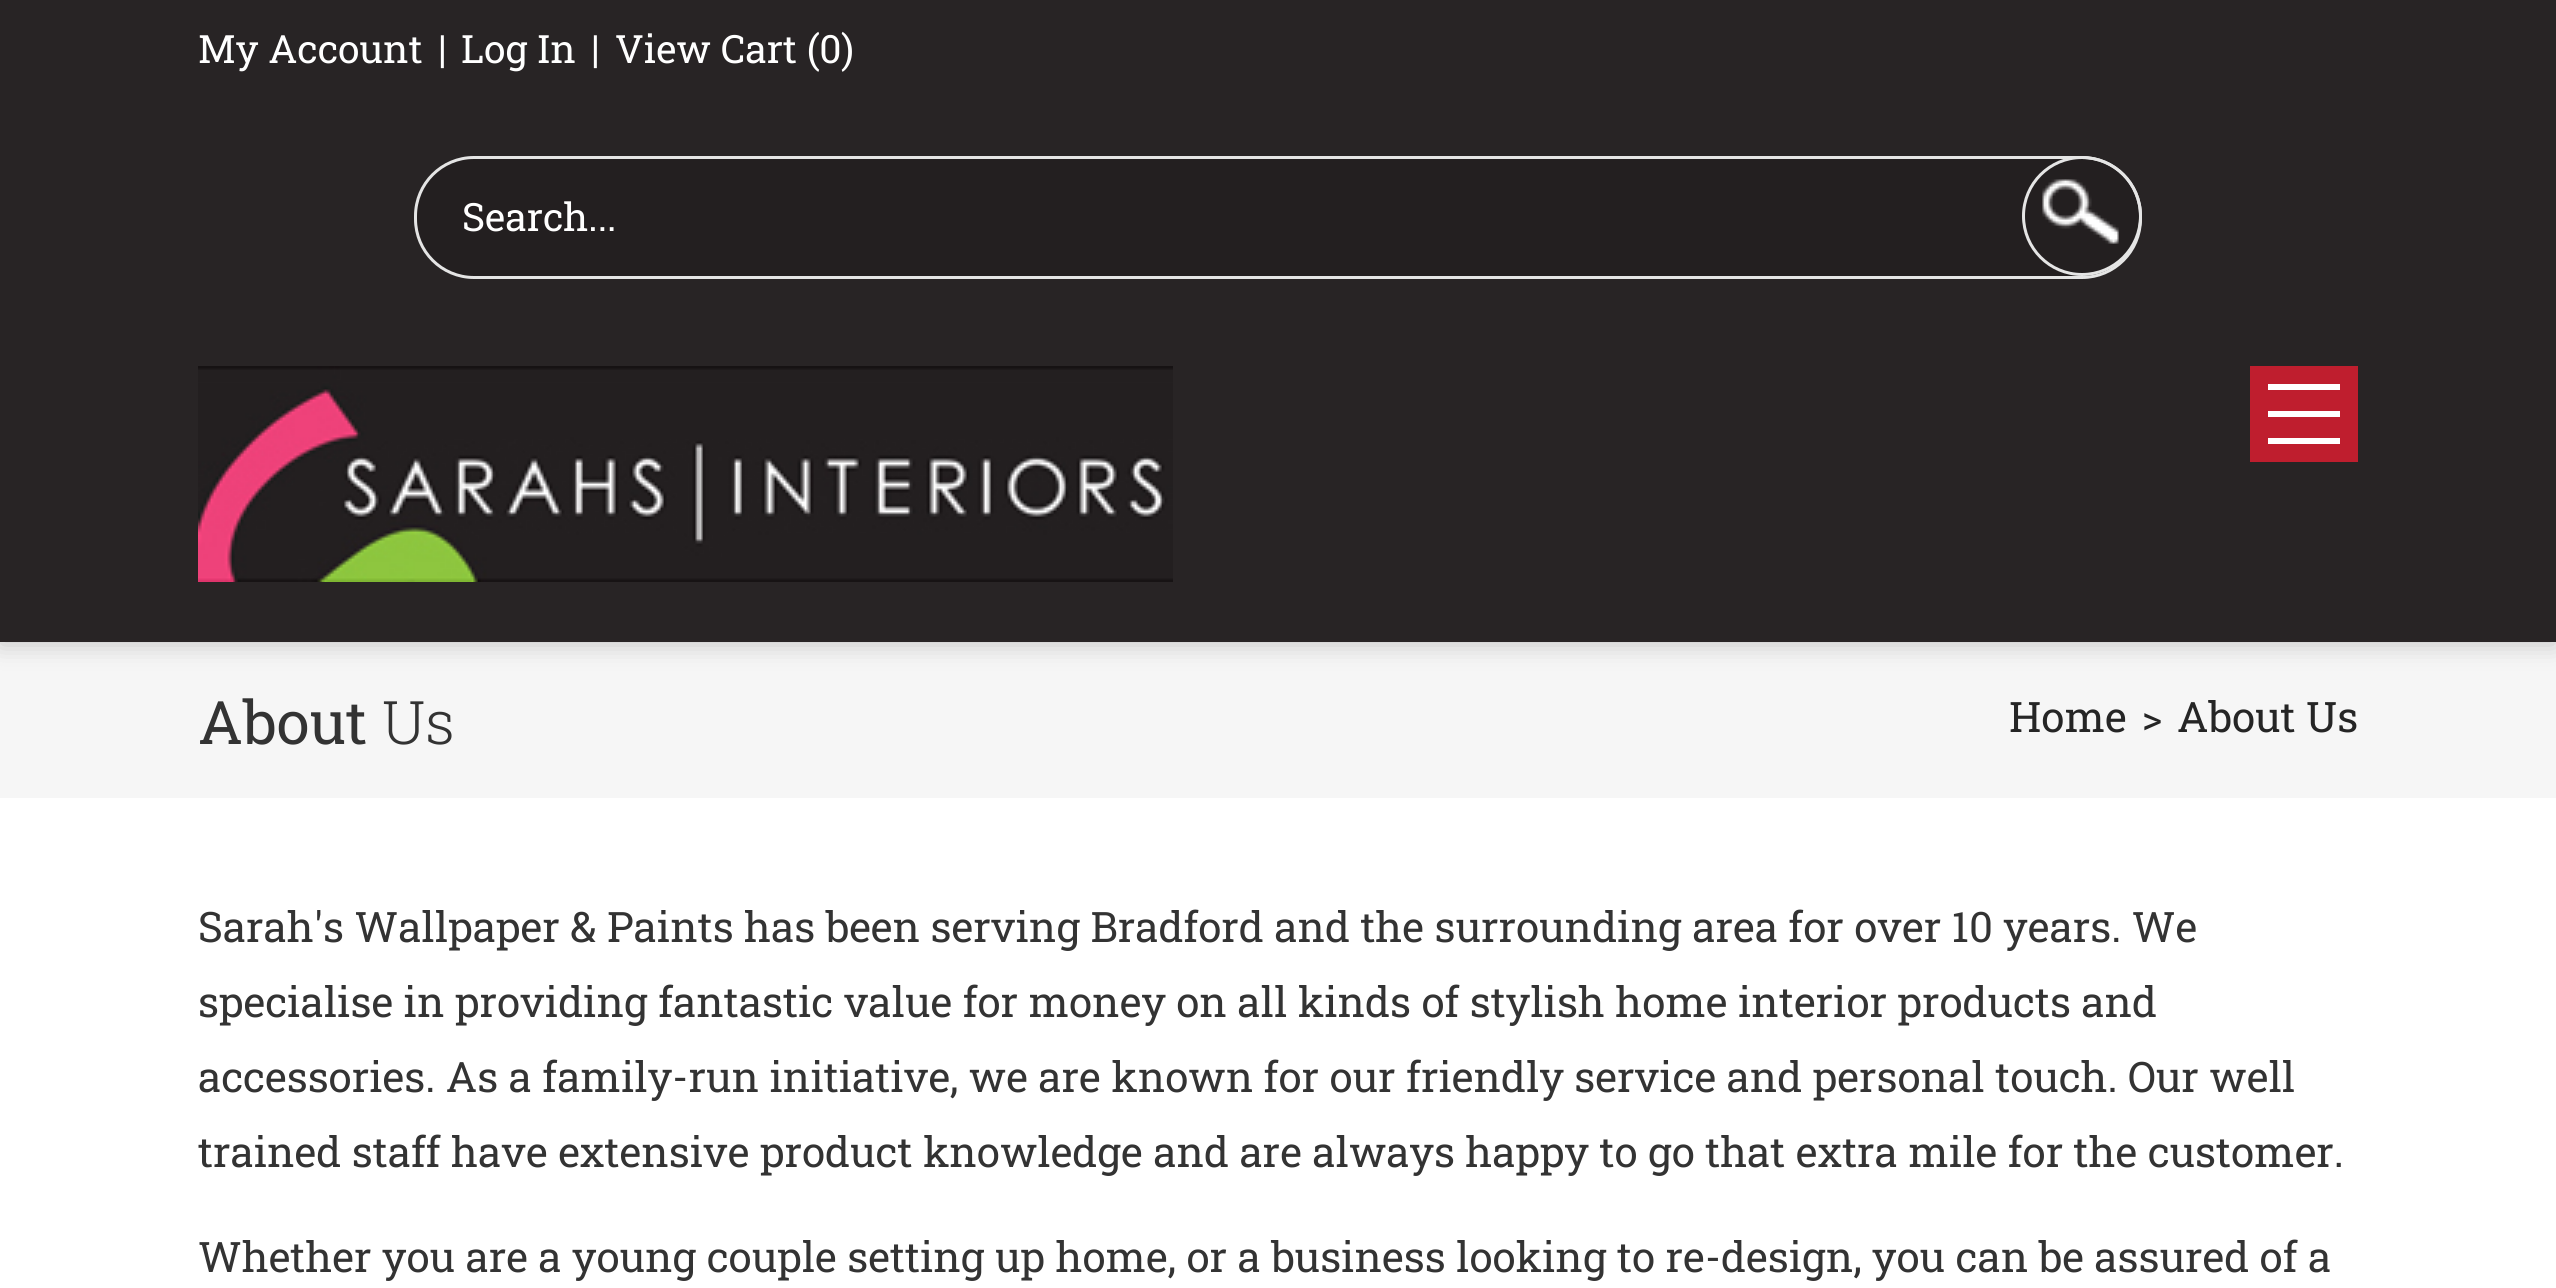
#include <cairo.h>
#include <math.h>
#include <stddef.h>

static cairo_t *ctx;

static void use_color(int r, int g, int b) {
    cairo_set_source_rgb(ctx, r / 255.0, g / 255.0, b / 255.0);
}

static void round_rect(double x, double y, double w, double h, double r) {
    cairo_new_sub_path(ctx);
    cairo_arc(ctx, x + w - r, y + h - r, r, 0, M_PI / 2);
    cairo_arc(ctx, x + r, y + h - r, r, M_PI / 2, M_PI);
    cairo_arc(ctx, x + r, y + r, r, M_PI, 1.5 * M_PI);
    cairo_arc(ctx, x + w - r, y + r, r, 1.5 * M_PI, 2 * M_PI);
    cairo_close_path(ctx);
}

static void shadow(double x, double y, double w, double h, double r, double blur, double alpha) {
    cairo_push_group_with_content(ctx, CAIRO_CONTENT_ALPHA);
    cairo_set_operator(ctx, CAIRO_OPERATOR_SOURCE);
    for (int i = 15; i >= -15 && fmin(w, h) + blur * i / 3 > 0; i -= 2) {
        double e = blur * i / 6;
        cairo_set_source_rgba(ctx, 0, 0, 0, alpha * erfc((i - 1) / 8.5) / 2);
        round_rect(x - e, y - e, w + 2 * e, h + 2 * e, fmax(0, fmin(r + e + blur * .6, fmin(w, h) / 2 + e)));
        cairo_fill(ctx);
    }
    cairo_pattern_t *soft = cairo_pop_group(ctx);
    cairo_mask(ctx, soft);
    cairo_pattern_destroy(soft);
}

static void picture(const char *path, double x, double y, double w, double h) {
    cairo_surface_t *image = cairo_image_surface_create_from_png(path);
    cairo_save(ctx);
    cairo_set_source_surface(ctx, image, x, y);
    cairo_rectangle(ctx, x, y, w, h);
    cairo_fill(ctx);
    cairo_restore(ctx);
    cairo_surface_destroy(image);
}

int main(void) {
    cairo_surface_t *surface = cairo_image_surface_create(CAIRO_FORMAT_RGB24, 2556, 1288);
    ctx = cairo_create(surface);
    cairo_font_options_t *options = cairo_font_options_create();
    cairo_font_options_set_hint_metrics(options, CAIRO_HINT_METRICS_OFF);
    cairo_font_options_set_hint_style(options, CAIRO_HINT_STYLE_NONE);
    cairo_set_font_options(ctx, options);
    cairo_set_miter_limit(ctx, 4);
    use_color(255, 255, 255);
    cairo_paint(ctx);
    use_color(246, 246, 246);
    cairo_rectangle(ctx, 0, 642, 2556, 156);
    cairo_fill(ctx);
    use_color(0, 0, 0);
    shadow(0, 3, 2556, 642, 0, 12, 0.2);
    use_color(40, 36, 37);
    cairo_rectangle(ctx, 0, 0, 2556, 642);
    cairo_fill(ctx);
    cairo_select_font_face(ctx, "Roboto Slab", CAIRO_FONT_SLANT_NORMAL, CAIRO_FONT_WEIGHT_NORMAL);
    cairo_set_font_size(ctx, 39);
    use_color(255, 255, 255);
    cairo_move_to(ctx, 198, 63);
    cairo_show_text(ctx, "My Account");
    cairo_move_to(ctx, 438, 63);
    cairo_show_text(ctx, "|");
    cairo_move_to(ctx, 461, 63);
    cairo_show_text(ctx, "Log In");
    cairo_move_to(ctx, 591, 63);
    cairo_show_text(ctx, "|");
    cairo_move_to(ctx, 615, 63);
    cairo_show_text(ctx, "View Cart (0)");
    use_color(35, 31, 32);
    round_rect(415.5, 157.5, 1725, 120, 58.5);
    cairo_fill_preserve(ctx);
    use_color(229, 229, 229);
    cairo_set_line_width(ctx, 3);
    cairo_stroke(ctx);
    use_color(255, 255, 255);
    cairo_move_to(ctx, 462, 231);
    cairo_show_text(ctx, "Search...");
    picture("img1.png", 2042, 179, 77, 65);
    cairo_arc(ctx, 2082, 216, 58.5, 0, 2 * M_PI);
    use_color(229, 229, 229);
    cairo_stroke(ctx);
    picture("img2.png", 198, 366, 975, 216);
    use_color(191, 30, 46);
    cairo_rectangle(ctx, 2250, 366, 108, 96);
    cairo_fill(ctx);
    use_color(255, 255, 255);
    cairo_rectangle(ctx, 2268, 384, 72, 6);
    cairo_fill(ctx);
    cairo_rectangle(ctx, 2268, 411, 72, 6);
    cairo_fill(ctx);
    cairo_rectangle(ctx, 2268, 438, 72, 6);
    cairo_fill(ctx);
    cairo_set_font_size(ctx, 60);
    use_color(51, 51, 51);
    cairo_move_to(ctx, 198, 744);
    cairo_show_text(ctx, "About");
    cairo_select_font_face(ctx, "Roboto Slab Light", CAIRO_FONT_SLANT_NORMAL, CAIRO_FONT_WEIGHT_NORMAL);
    cairo_move_to(ctx, 382, 744);
    cairo_show_text(ctx, "Us");
    cairo_select_font_face(ctx, "Roboto Slab", CAIRO_FONT_SLANT_NORMAL, CAIRO_FONT_WEIGHT_NORMAL);
    cairo_set_font_size(ctx, 42);
    use_color(37, 37, 37);
    cairo_move_to(ctx, 2009, 732);
    cairo_show_text(ctx, "Home");
    cairo_set_font_size(ctx, 39);
    cairo_move_to(ctx, 2142, 732);
    cairo_show_text(ctx, ">");
    cairo_set_font_size(ctx, 42);
    cairo_move_to(ctx, 2177, 732);
    cairo_show_text(ctx, "About Us");
    use_color(51, 51, 51);
    cairo_move_to(ctx, 198, 942);
    cairo_show_text(ctx, "Sarah's Wallpaper & Paints has been serving Bradford and the surrounding area for over 10 years. We");
    cairo_move_to(ctx, 198, 1017);
    cairo_show_text(ctx, "specialise in providing fantastic value for money on all kinds of stylish home interior products and");
    cairo_move_to(ctx, 198, 1092);
    cairo_show_text(ctx, "accessories. As a family-run initiative, we are known for our friendly service and personal touch. Our well");
    cairo_move_to(ctx, 198, 1167);
    cairo_show_text(ctx, "trained staff have extensive product knowledge and are always happy to go that extra mile for the customer.");
    cairo_move_to(ctx, 198, 1272);
    cairo_show_text(ctx, "Whether you are a young couple setting up home, or a business looking to re-design, you can be assured of a");
    cairo_surface_write_to_png(surface, "result.png");
    cairo_font_options_destroy(options);
    cairo_destroy(ctx);
    cairo_surface_destroy(surface);
    return 0;
}
